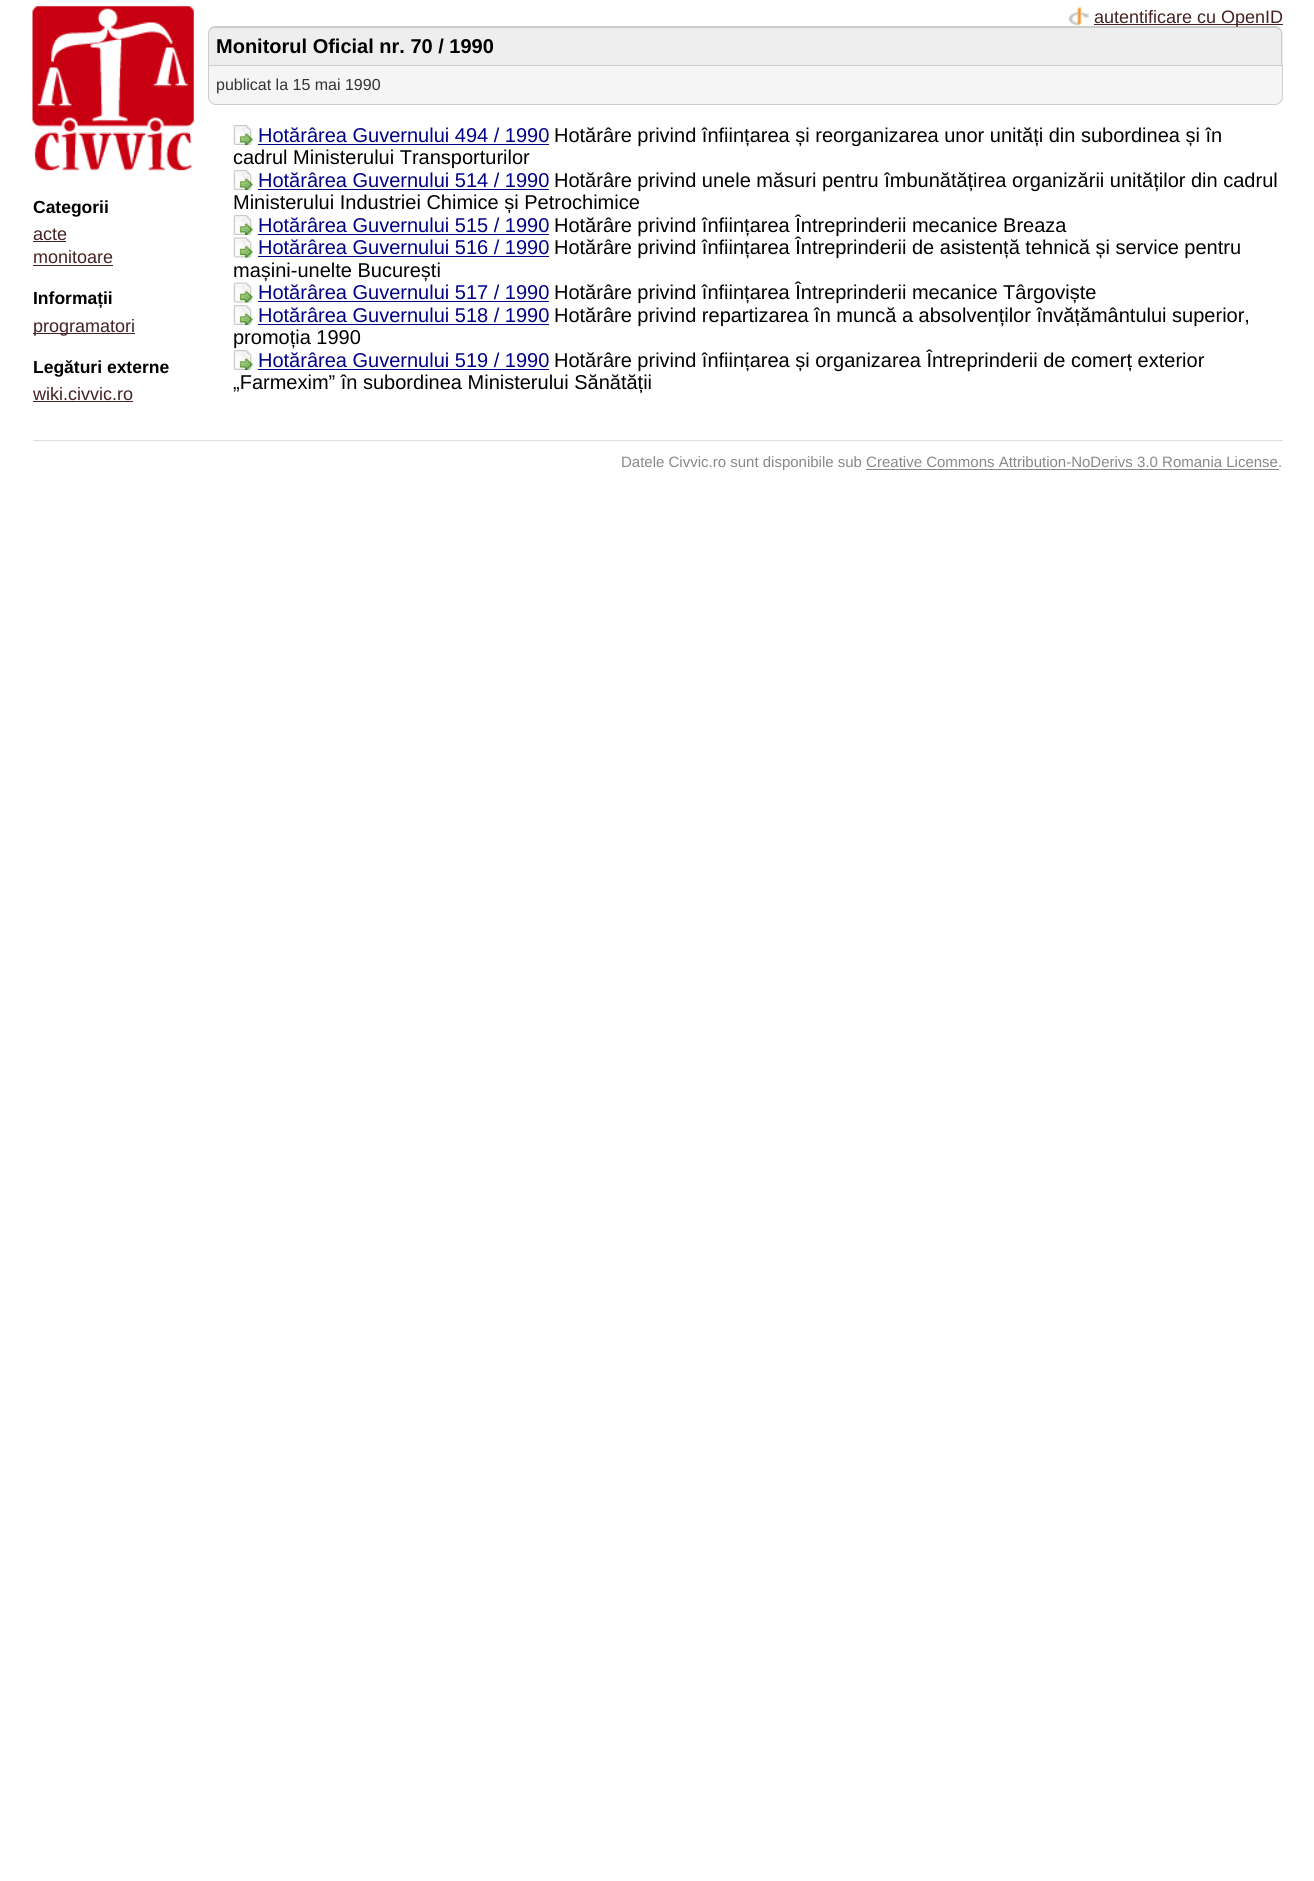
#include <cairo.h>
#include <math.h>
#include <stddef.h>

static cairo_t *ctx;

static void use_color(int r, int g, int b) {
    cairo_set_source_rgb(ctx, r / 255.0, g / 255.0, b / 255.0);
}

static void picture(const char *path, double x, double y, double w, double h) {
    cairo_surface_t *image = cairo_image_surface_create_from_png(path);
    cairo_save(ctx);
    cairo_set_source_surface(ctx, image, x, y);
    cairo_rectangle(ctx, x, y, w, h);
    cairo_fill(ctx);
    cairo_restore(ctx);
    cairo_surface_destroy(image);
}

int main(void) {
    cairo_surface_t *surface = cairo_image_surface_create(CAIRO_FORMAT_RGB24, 1314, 1881);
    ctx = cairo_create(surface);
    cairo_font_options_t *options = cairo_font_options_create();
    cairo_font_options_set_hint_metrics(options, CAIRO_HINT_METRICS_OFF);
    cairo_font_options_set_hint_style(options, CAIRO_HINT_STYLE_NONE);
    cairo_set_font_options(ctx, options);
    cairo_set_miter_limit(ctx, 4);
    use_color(255, 255, 255);
    cairo_paint(ctx);
    picture("img1.png", 32, 6, 162, 165);
    cairo_select_font_face(ctx, "Liberation Sans", CAIRO_FONT_SLANT_NORMAL, CAIRO_FONT_WEIGHT_BOLD);
    cairo_set_font_size(ctx, 17.5);
    use_color(0, 0, 0);
    cairo_move_to(ctx, 33, 213);
    cairo_show_text(ctx, "Categorii");
    cairo_select_font_face(ctx, "Liberation Sans", CAIRO_FONT_SLANT_NORMAL, CAIRO_FONT_WEIGHT_NORMAL);
    cairo_set_font_size(ctx, 18);
    use_color(68, 34, 34);
    cairo_move_to(ctx, 33, 240);
    cairo_show_text(ctx, "acte");
    cairo_rectangle(ctx, 33, 241, 33, 1);
    cairo_fill(ctx);
    cairo_move_to(ctx, 33, 263);
    cairo_show_text(ctx, "monitoare");
    cairo_rectangle(ctx, 33, 265, 80, 1);
    cairo_fill(ctx);
    cairo_select_font_face(ctx, "Liberation Sans", CAIRO_FONT_SLANT_NORMAL, CAIRO_FONT_WEIGHT_BOLD);
    cairo_set_font_size(ctx, 17.5);
    use_color(0, 0, 0);
    cairo_move_to(ctx, 33, 304);
    cairo_show_text(ctx, "Informații");
    use_color(68, 34, 34);
    cairo_rectangle(ctx, 33, 333, 102, 1);
    cairo_fill(ctx);
    cairo_select_font_face(ctx, "Liberation Sans", CAIRO_FONT_SLANT_NORMAL, CAIRO_FONT_WEIGHT_NORMAL);
    cairo_set_font_size(ctx, 18);
    cairo_move_to(ctx, 33, 332);
    cairo_show_text(ctx, "programatori");
    cairo_select_font_face(ctx, "Liberation Sans", CAIRO_FONT_SLANT_NORMAL, CAIRO_FONT_WEIGHT_BOLD);
    cairo_set_font_size(ctx, 17.5);
    use_color(0, 0, 0);
    cairo_move_to(ctx, 33, 373);
    cairo_show_text(ctx, "Legături externe");
    cairo_select_font_face(ctx, "Liberation Sans", CAIRO_FONT_SLANT_NORMAL, CAIRO_FONT_WEIGHT_NORMAL);
    cairo_set_font_size(ctx, 18);
    use_color(68, 34, 34);
    cairo_move_to(ctx, 33, 400);
    cairo_show_text(ctx, "wiki.civvic.ro");
    cairo_rectangle(ctx, 33, 401, 100, 1);
    cairo_fill(ctx);
    picture("img2.png", 1068, 6, 21, 20);
    cairo_rectangle(ctx, 1094, 24, 189, 1);
    cairo_fill(ctx);
    use_color(238, 238, 238);
    cairo_new_path(ctx);
    cairo_move_to(ctx, 216, 26);
    cairo_line_to(ctx, 1275, 26);
    cairo_curve_to(ctx, 1279.5, 26, 1283, 29.5, 1283, 34);
    cairo_line_to(ctx, 1283, 65);
    cairo_line_to(ctx, 208, 65);
    cairo_line_to(ctx, 208, 34);
    cairo_curve_to(ctx, 208, 29.5, 211.5, 26, 216, 26);
    cairo_close_path(ctx);
    cairo_fill(ctx);
    use_color(204, 204, 204);
    cairo_set_fill_rule(ctx, CAIRO_FILL_RULE_EVEN_ODD);
    cairo_new_path(ctx);
    cairo_move_to(ctx, 215, 26);
    cairo_line_to(ctx, 1275, 26);
    cairo_curve_to(ctx, 1279, 26, 1282, 30, 1282, 34);
    cairo_line_to(ctx, 1282, 65);
    cairo_line_to(ctx, 208, 65);
    cairo_line_to(ctx, 208, 34);
    cairo_curve_to(ctx, 208, 30, 211, 26, 215, 26);
    cairo_close_path(ctx);
    cairo_move_to(ctx, 215, 28);
    cairo_line_to(ctx, 1275, 28);
    cairo_curve_to(ctx, 1278, 28, 1281, 30, 1281, 34);
    cairo_line_to(ctx, 1281, 65);
    cairo_line_to(ctx, 209, 65);
    cairo_line_to(ctx, 209, 34);
    cairo_curve_to(ctx, 209, 30, 212, 28, 215, 28);
    cairo_close_path(ctx);
    cairo_fill(ctx);
    use_color(68, 34, 34);
    cairo_move_to(ctx, 1094, 23);
    cairo_show_text(ctx, "autentificare cu OpenID");
    cairo_select_font_face(ctx, "Liberation Sans", CAIRO_FONT_SLANT_NORMAL, CAIRO_FONT_WEIGHT_BOLD);
    cairo_set_font_size(ctx, 20);
    use_color(0, 0, 0);
    cairo_move_to(ctx, 216, 53);
    cairo_show_text(ctx, "Monitorul Oficial nr. 70 / 1990");
    use_color(245, 245, 245);
    cairo_new_path(ctx);
    cairo_move_to(ctx, 208.5, 65.5);
    cairo_line_to(ctx, 1282.5, 65.5);
    cairo_line_to(ctx, 1282.5, 97);
    cairo_curve_to(ctx, 1282.5, 101, 1279, 104.5, 1275, 104.5);
    cairo_line_to(ctx, 216, 104.5);
    cairo_curve_to(ctx, 212, 104.5, 208.5, 101, 208.5, 97);
    cairo_close_path(ctx);
    cairo_fill_preserve(ctx);
    use_color(204, 204, 204);
    cairo_set_line_width(ctx, 1);
    cairo_stroke(ctx);
    cairo_select_font_face(ctx, "Liberation Sans", CAIRO_FONT_SLANT_NORMAL, CAIRO_FONT_WEIGHT_NORMAL);
    cairo_set_font_size(ctx, 16);
    use_color(51, 51, 51);
    cairo_move_to(ctx, 216, 90);
    cairo_show_text(ctx, "publicat la 15 mai 1990");
    picture("img3.png", 233, 125, 20, 20);
    cairo_set_font_size(ctx, 20);
    use_color(0, 0, 136);
    cairo_move_to(ctx, 258, 142);
    cairo_show_text(ctx, "Hotărârea Guvernului 494 / 1990");
    cairo_rectangle(ctx, 258, 144, 291, 1);
    cairo_fill(ctx);
    use_color(0, 0, 0);
    cairo_move_to(ctx, 554, 142);
    cairo_show_text(ctx, "Hotărâre privind înființarea și reorganizarea unor unități din subordinea și în");
    cairo_move_to(ctx, 233, 164);
    cairo_show_text(ctx, "cadrul Ministerului Transporturilor");
    picture("img3.png", 233, 170, 20, 20);
    use_color(0, 0, 136);
    cairo_move_to(ctx, 258, 187);
    cairo_show_text(ctx, "Hotărârea Guvernului 514 / 1990");
    cairo_rectangle(ctx, 258, 189, 291, 1);
    cairo_fill(ctx);
    use_color(0, 0, 0);
    cairo_move_to(ctx, 554, 187);
    cairo_show_text(ctx, "Hotărâre privind unele măsuri pentru îmbunătățirea organizării unităților din cadrul");
    cairo_move_to(ctx, 233, 209);
    cairo_show_text(ctx, "Ministerului Industriei Chimice și Petrochimice");
    picture("img3.png", 233, 215, 20, 20);
    use_color(0, 0, 136);
    cairo_move_to(ctx, 258, 232);
    cairo_show_text(ctx, "Hotărârea Guvernului 515 / 1990");
    cairo_rectangle(ctx, 258, 234, 291, 1);
    cairo_fill(ctx);
    use_color(0, 0, 0);
    cairo_move_to(ctx, 554, 232);
    cairo_show_text(ctx, "Hotărâre privind înființarea Întreprinderii mecanice Breaza");
    picture("img4.png", 233, 237, 20, 21);
    use_color(0, 0, 136);
    cairo_move_to(ctx, 258, 254);
    cairo_show_text(ctx, "Hotărârea Guvernului 516 / 1990");
    cairo_rectangle(ctx, 258, 256, 291, 1);
    cairo_fill(ctx);
    use_color(0, 0, 0);
    cairo_move_to(ctx, 554, 254);
    cairo_show_text(ctx, "Hotărâre privind înființarea Întreprinderii de asistență tehnică și service pentru");
    cairo_move_to(ctx, 233, 277);
    cairo_show_text(ctx, "mașini-unelte București");
    picture("img5.png", 233, 282, 20, 21);
    use_color(0, 0, 136);
    cairo_move_to(ctx, 258, 299);
    cairo_show_text(ctx, "Hotărârea Guvernului 517 / 1990");
    cairo_rectangle(ctx, 258, 301, 291, 1);
    cairo_fill(ctx);
    use_color(0, 0, 0);
    cairo_move_to(ctx, 554, 299);
    cairo_show_text(ctx, "Hotărâre privind înființarea Întreprinderii mecanice Târgoviște");
    picture("img3.png", 233, 305, 20, 20);
    use_color(0, 0, 136);
    cairo_move_to(ctx, 258, 322);
    cairo_show_text(ctx, "Hotărârea Guvernului 518 / 1990");
    cairo_rectangle(ctx, 258, 324, 291, 1);
    cairo_fill(ctx);
    use_color(0, 0, 0);
    cairo_move_to(ctx, 554, 322);
    cairo_show_text(ctx, "Hotărâre privind repartizarea în muncă a absolvenților învățământului superior,");
    cairo_move_to(ctx, 233, 344);
    cairo_show_text(ctx, "promoția 1990");
    picture("img3.png", 233, 350, 20, 20);
    use_color(0, 0, 136);
    cairo_move_to(ctx, 258, 367);
    cairo_show_text(ctx, "Hotărârea Guvernului 519 / 1990");
    cairo_rectangle(ctx, 258, 369, 291, 1);
    cairo_fill(ctx);
    use_color(0, 0, 0);
    cairo_move_to(ctx, 554, 367);
    cairo_show_text(ctx, "Hotărâre privind înființarea și organizarea Întreprinderii de comerț exterior");
    cairo_move_to(ctx, 233, 389);
    cairo_show_text(ctx, "„Farmexim” în subordinea Ministerului Sănătății");
    use_color(221, 221, 221);
    cairo_rectangle(ctx, 33, 440, 1250, 1);
    cairo_fill(ctx);
    cairo_set_font_size(ctx, 15);
    use_color(136, 136, 136);
    cairo_move_to(ctx, 621, 467);
    cairo_show_text(ctx, "Datele Civvic.ro sunt disponibile sub Creative Commons Attribution-NoDerivs 3.0 Romania License.");
    cairo_rectangle(ctx, 866, 469, 413, 1);
    cairo_fill(ctx);
    cairo_surface_write_to_png(surface, "result.png");
    cairo_font_options_destroy(options);
    cairo_destroy(ctx);
    cairo_surface_destroy(surface);
    return 0;
}
